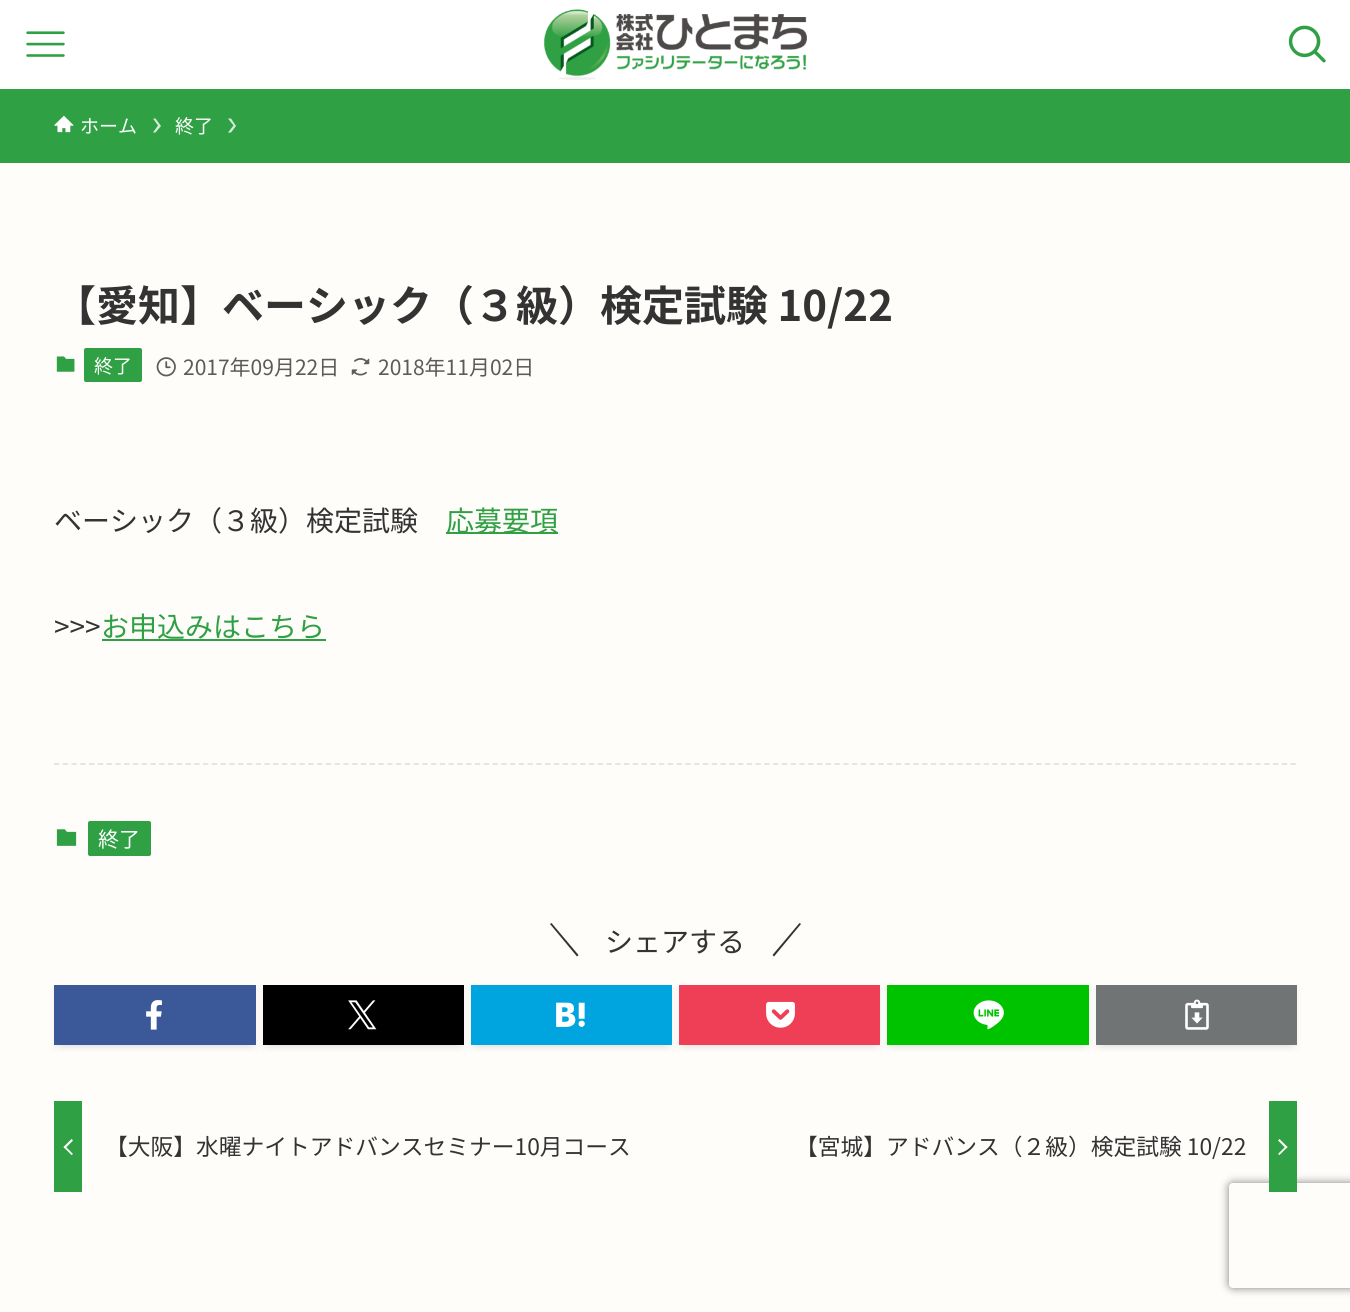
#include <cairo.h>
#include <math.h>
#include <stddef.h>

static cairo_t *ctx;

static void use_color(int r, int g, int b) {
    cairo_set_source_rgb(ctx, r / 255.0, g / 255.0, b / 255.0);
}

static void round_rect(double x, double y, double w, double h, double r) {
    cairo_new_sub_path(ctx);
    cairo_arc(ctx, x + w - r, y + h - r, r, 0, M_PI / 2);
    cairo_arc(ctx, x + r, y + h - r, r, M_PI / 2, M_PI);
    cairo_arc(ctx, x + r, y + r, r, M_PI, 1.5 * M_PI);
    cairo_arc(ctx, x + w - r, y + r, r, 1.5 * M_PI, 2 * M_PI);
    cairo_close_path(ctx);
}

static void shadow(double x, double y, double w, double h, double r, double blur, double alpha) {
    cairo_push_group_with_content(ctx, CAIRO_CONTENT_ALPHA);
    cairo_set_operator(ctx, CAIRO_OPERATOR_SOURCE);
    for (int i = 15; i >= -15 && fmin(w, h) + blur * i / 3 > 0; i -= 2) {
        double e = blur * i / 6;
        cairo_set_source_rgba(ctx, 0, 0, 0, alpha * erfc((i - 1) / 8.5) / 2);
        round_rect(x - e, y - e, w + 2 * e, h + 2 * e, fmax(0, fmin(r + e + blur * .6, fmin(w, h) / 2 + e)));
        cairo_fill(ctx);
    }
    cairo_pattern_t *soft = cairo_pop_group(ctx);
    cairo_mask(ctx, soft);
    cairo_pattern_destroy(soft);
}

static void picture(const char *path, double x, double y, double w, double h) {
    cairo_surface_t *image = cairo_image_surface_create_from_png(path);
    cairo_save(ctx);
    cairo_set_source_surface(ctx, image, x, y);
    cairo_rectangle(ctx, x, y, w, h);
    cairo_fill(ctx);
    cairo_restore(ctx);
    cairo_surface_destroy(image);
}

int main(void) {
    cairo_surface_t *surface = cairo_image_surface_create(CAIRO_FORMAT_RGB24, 1350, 1312);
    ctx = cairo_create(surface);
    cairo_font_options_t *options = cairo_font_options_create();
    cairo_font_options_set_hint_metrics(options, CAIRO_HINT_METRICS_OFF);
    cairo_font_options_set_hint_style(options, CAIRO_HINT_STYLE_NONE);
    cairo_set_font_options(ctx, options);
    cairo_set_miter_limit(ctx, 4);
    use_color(255, 253, 250);
    cairo_paint(ctx);
    use_color(255, 255, 255);
    cairo_rectangle(ctx, 0, 0, 1350, 89);
    cairo_fill(ctx);
    picture("img1.png", 26, 31, 39, 26);
    picture("img2.png", 544, 9, 263, 71);
    picture("img3.png", 1288, 25, 38, 38);
    use_color(48, 160, 68);
    cairo_rectangle(ctx, 0, 89, 1350, 74);
    cairo_fill(ctx);
    picture("img4.png", 54, 115, 20, 18);
    cairo_select_font_face(ctx, "Noto Sans JP", CAIRO_FONT_SLANT_NORMAL, CAIRO_FONT_WEIGHT_NORMAL);
    cairo_set_font_size(ctx, 19);
    use_color(255, 255, 255);
    cairo_move_to(ctx, 80, 133);
    cairo_show_text(ctx, "ホーム");
    use_color(214, 236, 218);
    cairo_new_path(ctx);
    cairo_move_to(ctx, 155.5, 118.5);
    cairo_line_to(ctx, 153, 118.5);
    cairo_line_to(ctx, 158, 125.5);
    cairo_line_to(ctx, 153, 132.5);
    cairo_line_to(ctx, 155.5, 132.5);
    cairo_line_to(ctx, 161, 126);
    cairo_close_path(ctx);
    cairo_fill(ctx);
    use_color(255, 255, 255);
    cairo_move_to(ctx, 175, 133);
    cairo_show_text(ctx, "終了");
    use_color(214, 236, 218);
    cairo_new_path(ctx);
    cairo_move_to(ctx, 231, 118.5);
    cairo_line_to(ctx, 228, 118.5);
    cairo_line_to(ctx, 233.5, 125.5);
    cairo_line_to(ctx, 228, 132.5);
    cairo_line_to(ctx, 231, 132.5);
    cairo_line_to(ctx, 236, 126);
    cairo_close_path(ctx);
    cairo_fill(ctx);
    cairo_select_font_face(ctx, "Noto Sans JP", CAIRO_FONT_SLANT_NORMAL, CAIRO_FONT_WEIGHT_BOLD);
    cairo_set_font_size(ctx, 42);
    use_color(51, 51, 51);
    cairo_move_to(ctx, 54, 321);
    cairo_show_text(ctx, "【愛知】ベーシック（３級）検定試験 10/22");
    picture("img5.png", 56, 356, 19, 16);
    use_color(48, 160, 68);
    round_rect(84, 348, 58, 34, 2);
    cairo_fill(ctx);
    cairo_select_font_face(ctx, "Noto Sans JP", CAIRO_FONT_SLANT_NORMAL, CAIRO_FONT_WEIGHT_NORMAL);
    cairo_set_font_size(ctx, 19);
    use_color(255, 255, 255);
    cairo_move_to(ctx, 94, 373);
    cairo_show_text(ctx, "終了");
    picture("img6.png", 156, 357, 20, 20);
    cairo_set_font_size(ctx, 21);
    use_color(92, 91, 91);
    cairo_move_to(ctx, 183, 375);
    cairo_show_text(ctx, "2017年09月22日");
    picture("img7.png", 351, 358, 19, 18);
    cairo_move_to(ctx, 378, 375);
    cairo_show_text(ctx, "2018年11月02日");
    cairo_set_font_size(ctx, 28);
    use_color(51, 51, 51);
    cairo_move_to(ctx, 54, 531);
    cairo_show_text(ctx, "ベーシック（３級）検定試験");
    use_color(48, 160, 68);
    cairo_rectangle(ctx, 446, 532, 112, 2);
    cairo_fill(ctx);
    cairo_move_to(ctx, 446, 531);
    cairo_show_text(ctx, "応募要項");
    use_color(51, 51, 51);
    cairo_move_to(ctx, 54, 637);
    cairo_show_text(ctx, ">>>");
    use_color(48, 160, 68);
    cairo_rectangle(ctx, 102, 639, 224, 2);
    cairo_fill(ctx);
    cairo_move_to(ctx, 101, 637);
    cairo_show_text(ctx, "お申込みはこちら");
    cairo_new_path(ctx);
    cairo_move_to(ctx, 54, 764);
    cairo_line_to(ctx, 1297, 764);
    use_color(227, 226, 225);
    cairo_set_line_width(ctx, 1.8);
    cairo_set_dash(ctx, (double[]){5.25, 3.52}, 2, 0);
    cairo_stroke(ctx);
    picture("img8.png", 56, 829, 21, 17);
    use_color(48, 160, 68);
    round_rect(88, 821, 63, 35, 2);
    cairo_fill(ctx);
    cairo_set_font_size(ctx, 21);
    use_color(255, 255, 255);
    cairo_move_to(ctx, 98, 847);
    cairo_show_text(ctx, "終了");
    use_color(51, 51, 51);
    cairo_new_path(ctx);
    cairo_move_to(ctx, 550, 924);
    cairo_line_to(ctx, 551.5, 923);
    cairo_line_to(ctx, 578.5, 955);
    cairo_line_to(ctx, 577, 956.5);
    cairo_close_path(ctx);
    cairo_fill(ctx);
    cairo_set_font_size(ctx, 28);
    cairo_move_to(ctx, 605, 952);
    cairo_show_text(ctx, "シェアする");
    cairo_new_path(ctx);
    cairo_move_to(ctx, 799.5, 923);
    cairo_line_to(ctx, 801, 924);
    cairo_line_to(ctx, 774, 956.5);
    cairo_line_to(ctx, 772.5, 955);
    cairo_close_path(ctx);
    cairo_fill(ctx);
    use_color(0, 0, 0);
    shadow(61, 999, 188, 46, 0, 3.5, 0.1);
    shadow(54, 989, 202, 59, 0, 3.5, 0.05);
    use_color(59, 89, 152);
    cairo_rectangle(ctx, 54, 985, 202, 60);
    cairo_fill(ctx);
    picture("img9.png", 146, 1000, 16, 30);
    use_color(0, 0, 0);
    shadow(270, 999, 187, 46, 0, 3.5, 0.1);
    shadow(263, 989, 201, 59, 0, 3.5, 0.05);
    use_color(0, 0, 0);
    cairo_rectangle(ctx, 263, 985, 201, 60);
    cairo_fill(ctx);
    picture("img10.png", 348, 1000, 29, 30);
    use_color(0, 0, 0);
    shadow(478, 999, 187, 46, 0, 3.5, 0.1);
    shadow(471, 989, 201, 59, 0, 3.5, 0.05);
    use_color(0, 164, 222);
    cairo_rectangle(ctx, 471, 985, 201, 60);
    cairo_fill(ctx);
    picture("img11.png", 556, 1002, 29, 25);
    use_color(0, 0, 0);
    shadow(686, 999, 187, 46, 0, 3.5, 0.1);
    shadow(679, 989, 201, 59, 0, 3.5, 0.05);
    use_color(239, 63, 86);
    cairo_rectangle(ctx, 679, 985, 201, 60);
    cairo_fill(ctx);
    picture("img12.png", 766, 1001, 29, 27);
    use_color(0, 0, 0);
    shadow(894, 999, 188, 46, 0, 3.5, 0.1);
    shadow(887, 989, 202, 59, 0, 3.5, 0.05);
    use_color(0, 195, 0);
    cairo_rectangle(ctx, 887, 985, 202, 60);
    cairo_fill(ctx);
    picture("img13.png", 973, 1000, 31, 30);
    use_color(0, 0, 0);
    shadow(1103, 999, 187, 46, 0, 3.5, 0.1);
    shadow(1096, 989, 201, 59, 0, 3.5, 0.05);
    use_color(113, 116, 117);
    cairo_rectangle(ctx, 1096, 985, 201, 60);
    cairo_fill(ctx);
    picture("img14.png", 1185, 999, 24, 31);
    use_color(48, 160, 68);
    cairo_rectangle(ctx, 54, 1101, 28, 91);
    cairo_fill(ctx);
    use_color(255, 255, 255);
    cairo_new_path(ctx);
    cairo_move_to(ctx, 65, 1146);
    cairo_line_to(ctx, 73, 1154);
    cairo_line_to(ctx, 71.5, 1155);
    cairo_line_to(ctx, 63.5, 1147);
    cairo_close_path(ctx);
    cairo_fill(ctx);
    cairo_new_path(ctx);
    cairo_move_to(ctx, 71.5, 1139);
    cairo_line_to(ctx, 73, 1140.5);
    cairo_line_to(ctx, 65, 1148.5);
    cairo_line_to(ctx, 63.5, 1147);
    cairo_close_path(ctx);
    cairo_fill(ctx);
    cairo_set_font_size(ctx, 22.75);
    use_color(51, 51, 51);
    cairo_move_to(ctx, 105, 1155);
    cairo_show_text(ctx, "【大阪】水曜ナイトアドバンスセミナー10月コース");
    cairo_save(ctx);
    cairo_set_fill_rule(ctx, CAIRO_FILL_RULE_EVEN_ODD);
    cairo_new_path(ctx);
    cairo_move_to(ctx, 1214, 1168);
    cairo_line_to(ctx, 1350, 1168);
    cairo_line_to(ctx, 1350, 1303);
    cairo_line_to(ctx, 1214, 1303);
    cairo_close_path(ctx);
    cairo_move_to(ctx, 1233, 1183);
    cairo_line_to(ctx, 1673, 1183);
    cairo_curve_to(ctx, 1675, 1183, 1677, 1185, 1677, 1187);
    cairo_line_to(ctx, 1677, 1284);
    cairo_curve_to(ctx, 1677, 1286, 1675, 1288, 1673, 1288);
    cairo_line_to(ctx, 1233, 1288);
    cairo_curve_to(ctx, 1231, 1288, 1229, 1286, 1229, 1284);
    cairo_line_to(ctx, 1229, 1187);
    cairo_curve_to(ctx, 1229, 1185, 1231, 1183, 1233, 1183);
    cairo_close_path(ctx);
    cairo_clip(ctx);
    use_color(128, 128, 128);
    shadow(1229, 1183, 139, 105, 4, 4.5, 1);
    cairo_restore(ctx);
    use_color(48, 160, 68);
    cairo_rectangle(ctx, 1269, 1101, 28, 91);
    cairo_fill(ctx);
    use_color(51, 51, 51);
    cairo_move_to(ctx, 795, 1155);
    cairo_show_text(ctx, "【宮城】アドバンス（２級）検定試験 10/22");
    use_color(255, 255, 255);
    cairo_new_path(ctx);
    cairo_move_to(ctx, 1278, 1140.5);
    cairo_line_to(ctx, 1279.5, 1139);
    cairo_line_to(ctx, 1287.5, 1147);
    cairo_line_to(ctx, 1286, 1148.5);
    cairo_close_path(ctx);
    cairo_fill(ctx);
    cairo_new_path(ctx);
    cairo_move_to(ctx, 1278, 1154);
    cairo_line_to(ctx, 1286, 1146);
    cairo_line_to(ctx, 1287.5, 1147);
    cairo_line_to(ctx, 1279.5, 1155);
    cairo_close_path(ctx);
    cairo_fill(ctx);
    cairo_surface_write_to_png(surface, "result.png");
    cairo_font_options_destroy(options);
    cairo_destroy(ctx);
    cairo_surface_destroy(surface);
    return 0;
}
